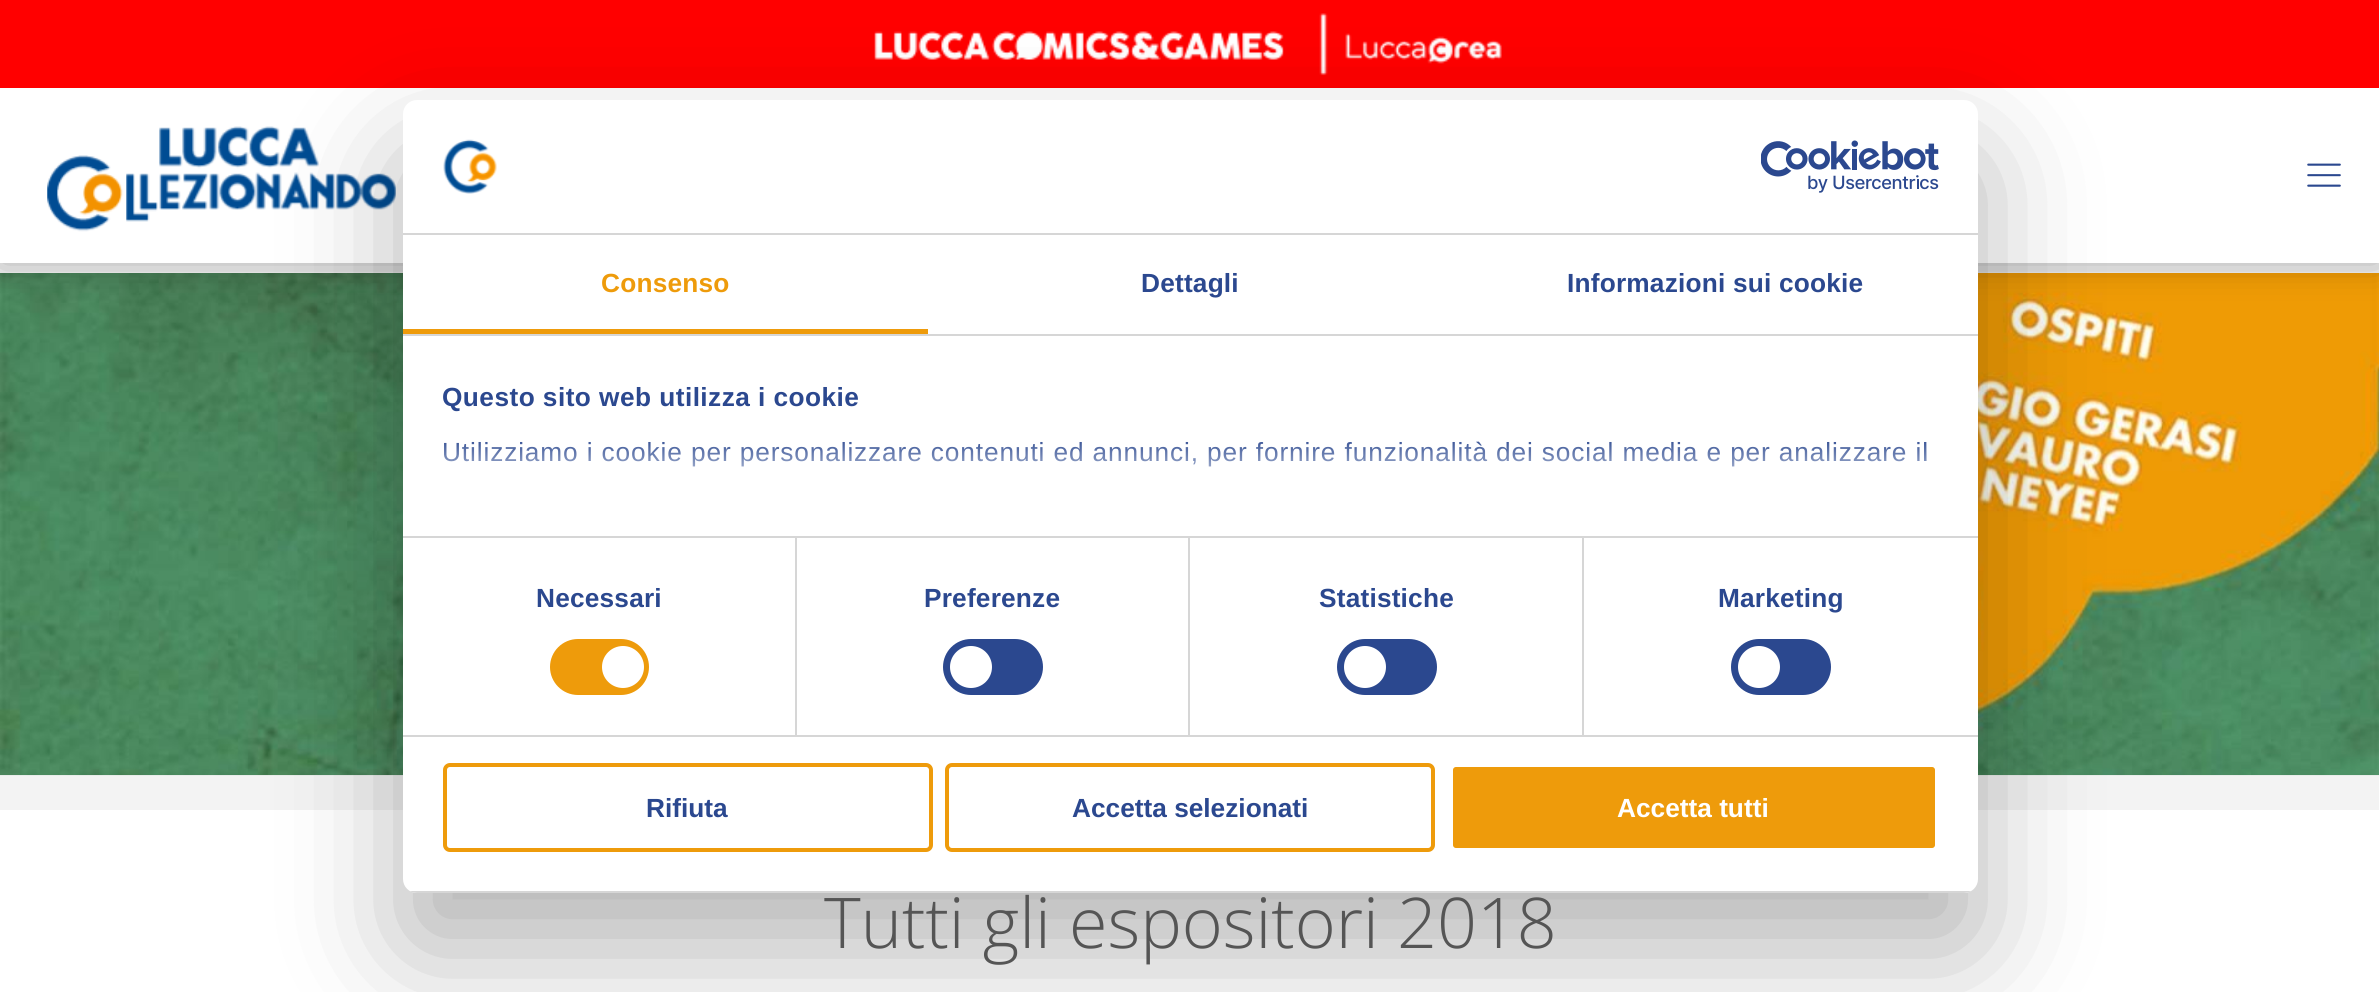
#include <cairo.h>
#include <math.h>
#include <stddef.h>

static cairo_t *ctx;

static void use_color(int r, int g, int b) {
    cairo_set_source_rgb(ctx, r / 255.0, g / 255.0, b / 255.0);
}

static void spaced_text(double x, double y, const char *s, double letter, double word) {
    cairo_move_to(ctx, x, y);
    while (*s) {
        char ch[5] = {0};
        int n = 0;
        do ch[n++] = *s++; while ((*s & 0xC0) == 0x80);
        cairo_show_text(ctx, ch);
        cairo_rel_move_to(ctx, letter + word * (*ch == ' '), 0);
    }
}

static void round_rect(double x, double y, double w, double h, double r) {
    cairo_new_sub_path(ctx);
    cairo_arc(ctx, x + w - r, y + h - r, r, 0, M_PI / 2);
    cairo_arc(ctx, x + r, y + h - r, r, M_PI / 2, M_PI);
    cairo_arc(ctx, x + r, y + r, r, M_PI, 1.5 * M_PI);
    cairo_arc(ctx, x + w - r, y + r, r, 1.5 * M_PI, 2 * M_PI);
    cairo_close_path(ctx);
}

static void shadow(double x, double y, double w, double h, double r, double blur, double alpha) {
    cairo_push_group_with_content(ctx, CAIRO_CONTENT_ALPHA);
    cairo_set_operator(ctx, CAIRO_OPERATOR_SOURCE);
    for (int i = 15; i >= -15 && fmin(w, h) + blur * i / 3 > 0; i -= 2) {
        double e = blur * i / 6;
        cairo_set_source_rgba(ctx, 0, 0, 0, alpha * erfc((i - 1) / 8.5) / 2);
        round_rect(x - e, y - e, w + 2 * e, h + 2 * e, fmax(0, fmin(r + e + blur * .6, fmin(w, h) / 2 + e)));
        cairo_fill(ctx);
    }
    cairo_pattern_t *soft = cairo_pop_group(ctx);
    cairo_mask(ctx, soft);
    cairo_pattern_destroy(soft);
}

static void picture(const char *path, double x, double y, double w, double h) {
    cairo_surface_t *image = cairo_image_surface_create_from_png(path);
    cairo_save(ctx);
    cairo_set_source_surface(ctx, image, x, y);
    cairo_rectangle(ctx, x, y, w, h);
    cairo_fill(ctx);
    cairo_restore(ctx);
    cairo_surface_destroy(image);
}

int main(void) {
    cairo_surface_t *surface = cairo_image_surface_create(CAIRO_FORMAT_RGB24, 2379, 992);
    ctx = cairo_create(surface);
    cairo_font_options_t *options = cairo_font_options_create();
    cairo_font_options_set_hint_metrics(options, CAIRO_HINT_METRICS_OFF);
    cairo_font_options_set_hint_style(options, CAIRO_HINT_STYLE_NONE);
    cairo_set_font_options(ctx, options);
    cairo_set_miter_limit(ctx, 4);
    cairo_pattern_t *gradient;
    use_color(243, 243, 243);
    cairo_paint(ctx);
    picture("img8.png", 0, 273, 2379, 503);
    use_color(0, 0, 0);
    shadow(0, 88, 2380, 175, 0, 17.5, 0.3);
    use_color(255, 0, 0);
    cairo_rectangle(ctx, 0, 0, 2379, 88);
    cairo_fill(ctx);
    picture("img1.png", 874, 31, 410, 29);
    picture("img2.png", 1319, 13, 9, 63);
    picture("img3.png", 1345, 33, 157, 31);
    use_color(255, 255, 255);
    cairo_rectangle(ctx, 0, 88, 2379, 175);
    cairo_fill(ctx);
    picture("img6.png", 47, 126, 349, 106);
    cairo_rectangle(ctx, 0, 810, 2379, 182);
    cairo_fill(ctx);
    use_color(0, 0, 0);
    shadow(403, 156, 1575, 793, 14, 59.5, 0.3);
    use_color(255, 255, 255);
    round_rect(403, 100, 1575, 793, 14);
    cairo_fill(ctx);
    use_color(214, 214, 214);
    cairo_rectangle(ctx, 403, 233, 1575, 2);
    cairo_fill(ctx);
    picture("img4.png", 443, 139, 54, 55);
    picture("img5.png", 1761, 140, 178, 53);
    cairo_rectangle(ctx, 403, 334, 1575, 2);
    cairo_fill(ctx);
    use_color(238, 155, 11);
    cairo_rectangle(ctx, 403, 329, 525, 5);
    cairo_fill(ctx);
    cairo_select_font_face(ctx, "Liberation Sans", CAIRO_FONT_SLANT_NORMAL, CAIRO_FONT_WEIGHT_BOLD);
    cairo_set_font_size(ctx, 26.25);
    spaced_text(601, 292, "Consenso", 0.2, 0);
    use_color(43, 72, 143);
    spaced_text(1141, 292, "Dettagli", 0.2, 0);
    spaced_text(1567, 292, "Informazioni sui cookie", 0.2, 0);
    use_color(214, 214, 214);
    cairo_rectangle(ctx, 795, 537, 2, 198);
    cairo_fill(ctx);
    cairo_rectangle(ctx, 1188, 537, 2, 198);
    cairo_fill(ctx);
    cairo_rectangle(ctx, 1582, 537, 2, 198);
    cairo_fill(ctx);
    cairo_rectangle(ctx, 403, 536, 1575, 2);
    cairo_fill(ctx);
    use_color(43, 72, 143);
    spaced_text(442, 406, "Questo sito web utilizza i cookie", 0.45, 0);
    cairo_select_font_face(ctx, "Liberation Sans", CAIRO_FONT_SLANT_NORMAL, CAIRO_FONT_WEIGHT_NORMAL);
    spaced_text(442, 461, "Utilizziamo i cookie per personalizzare contenuti ed annunci, per fornire funzionalità dei social media e per analizzare il", 0.88, 0);
    gradient = cairo_pattern_create_linear(1173, 536, 1173, 436);
    cairo_pattern_add_color_stop_rgba(gradient, 0, 1, 1, 1, 1);
    cairo_pattern_add_color_stop_rgba(gradient, 0.5, 1, 1, 1, 0.8);
    cairo_pattern_add_color_stop_rgba(gradient, 1, 1, 1, 1, 0);
    cairo_set_source(ctx, gradient);
    cairo_pattern_destroy(gradient);
    cairo_rectangle(ctx, 443, 441, 1483, 26);
    cairo_fill(ctx);
    use_color(214, 214, 214);
    cairo_rectangle(ctx, 403, 735, 1575, 2);
    cairo_fill(ctx);
    cairo_select_font_face(ctx, "Liberation Sans", CAIRO_FONT_SLANT_NORMAL, CAIRO_FONT_WEIGHT_BOLD);
    use_color(43, 72, 143);
    spaced_text(536, 607, "Necessari", 0.2, 0);
    use_color(238, 155, 11);
    round_rect(550, 639, 99, 56, 28);
    cairo_fill(ctx);
    use_color(255, 255, 255);
    cairo_arc(ctx, 623, 667, 21, 0, 2 * M_PI);
    cairo_fill(ctx);
    use_color(43, 72, 143);
    spaced_text(924, 607, "Preferenze", 0.2, 0);
    round_rect(943, 639, 100, 56, 28);
    cairo_fill(ctx);
    use_color(255, 255, 255);
    cairo_arc(ctx, 971, 667, 21, 0, 2 * M_PI);
    cairo_fill(ctx);
    use_color(43, 72, 143);
    spaced_text(1319, 607, "Statistiche", 0.2, 0);
    round_rect(1337, 639, 100, 56, 28);
    cairo_fill(ctx);
    use_color(255, 255, 255);
    cairo_arc(ctx, 1365, 667, 21, 0, 2 * M_PI);
    cairo_fill(ctx);
    use_color(43, 72, 143);
    spaced_text(1718, 607, "Marketing", 0.2, 0);
    round_rect(1731, 639, 100, 56, 28);
    cairo_fill(ctx);
    use_color(255, 255, 255);
    cairo_arc(ctx, 1759, 667, 21, 0, 2 * M_PI);
    cairo_fill(ctx);
    cairo_save(ctx);
    round_rect(403, 100, 1575, 793, 14);
    cairo_clip(ctx);
    use_color(214, 214, 214);
    cairo_rectangle(ctx, 403, 891, 1575, 2);
    cairo_fill(ctx);
    cairo_restore(ctx);
    round_rect(445, 765, 486, 85, 5);
    use_color(238, 155, 11);
    cairo_set_line_width(ctx, 4);
    cairo_stroke(ctx);
    use_color(43, 72, 143);
    cairo_move_to(ctx, 646, 817);
    cairo_show_text(ctx, "Rifiuta");
    round_rect(947, 765, 486, 85, 5);
    use_color(238, 155, 11);
    cairo_stroke(ctx);
    use_color(43, 72, 143);
    cairo_move_to(ctx, 1072, 817);
    cairo_show_text(ctx, "Accetta selezionati");
    use_color(238, 155, 11);
    round_rect(1451, 765, 486, 85, 5);
    cairo_fill_preserve(ctx);
    use_color(255, 255, 255);
    cairo_stroke(ctx);
    cairo_move_to(ctx, 1617, 817);
    cairo_show_text(ctx, "Accetta tutti");
    picture("img7.png", 2307, 163, 34, 24);
    cairo_select_font_face(ctx, "Open Sans Light", CAIRO_FONT_SLANT_NORMAL, CAIRO_FONT_WEIGHT_NORMAL);
    cairo_set_font_size(ctx, 70);
    use_color(85, 85, 85);
    cairo_move_to(ctx, 824, 948);
    cairo_show_text(ctx, "Tutti gli espositori 2018");
    cairo_surface_write_to_png(surface, "result.png");
    cairo_font_options_destroy(options);
    cairo_destroy(ctx);
    cairo_surface_destroy(surface);
    return 0;
}
